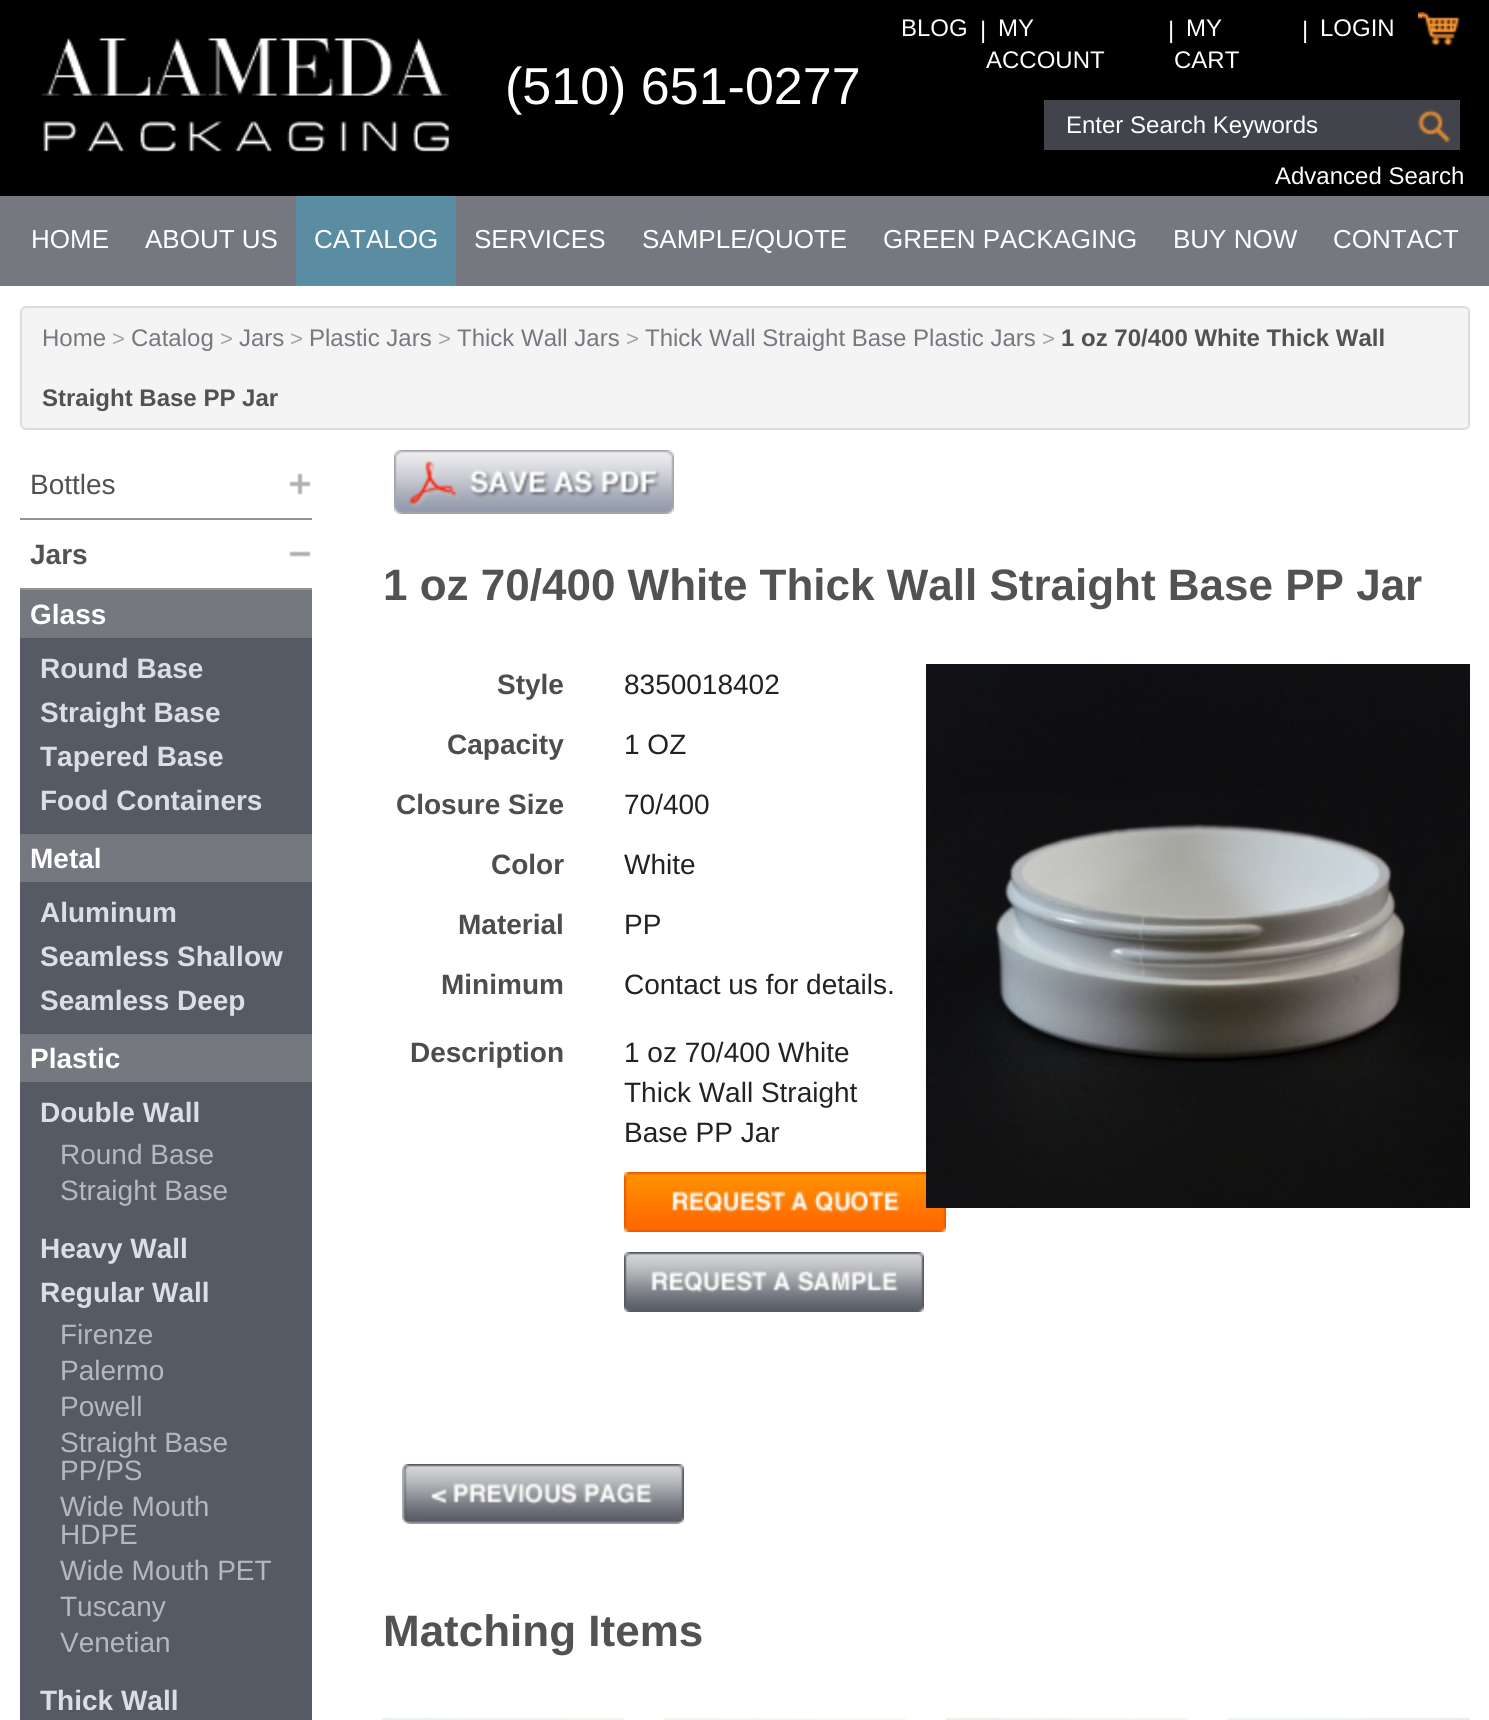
#include <cairo.h>
#include <math.h>
#include <stddef.h>

static cairo_t *ctx;

static void use_color(int r, int g, int b) {
    cairo_set_source_rgb(ctx, r / 255.0, g / 255.0, b / 255.0);
}

static void round_rect(double x, double y, double w, double h, double r) {
    cairo_new_sub_path(ctx);
    cairo_arc(ctx, x + w - r, y + h - r, r, 0, M_PI / 2);
    cairo_arc(ctx, x + r, y + h - r, r, M_PI / 2, M_PI);
    cairo_arc(ctx, x + r, y + r, r, M_PI, 1.5 * M_PI);
    cairo_arc(ctx, x + w - r, y + r, r, 1.5 * M_PI, 2 * M_PI);
    cairo_close_path(ctx);
}

static void picture(const char *path, double x, double y, double w, double h) {
    cairo_surface_t *image = cairo_image_surface_create_from_png(path);
    cairo_save(ctx);
    cairo_set_source_surface(ctx, image, x, y);
    cairo_rectangle(ctx, x, y, w, h);
    cairo_fill(ctx);
    cairo_restore(ctx);
    cairo_surface_destroy(image);
}

int main(void) {
    cairo_surface_t *surface = cairo_image_surface_create(CAIRO_FORMAT_RGB24, 1489, 1720);
    ctx = cairo_create(surface);
    cairo_font_options_t *options = cairo_font_options_create();
    cairo_font_options_set_hint_metrics(options, CAIRO_HINT_METRICS_OFF);
    cairo_font_options_set_hint_style(options, CAIRO_HINT_STYLE_NONE);
    cairo_set_font_options(ctx, options);
    cairo_set_miter_limit(ctx, 4);
    use_color(255, 255, 255);
    cairo_paint(ctx);
    use_color(0, 0, 0);
    cairo_rectangle(ctx, 0, 0, 1489, 196);
    cairo_fill(ctx);
    picture("img1.png", 41, 38, 409, 114);
    cairo_select_font_face(ctx, "Liberation Sans", CAIRO_FONT_SLANT_NORMAL, CAIRO_FONT_WEIGHT_NORMAL);
    cairo_set_font_size(ctx, 52);
    use_color(255, 255, 255);
    cairo_move_to(ctx, 505, 104);
    cairo_show_text(ctx, "(510) 651-0277");
    cairo_set_font_size(ctx, 24);
    cairo_move_to(ctx, 901, 36);
    cairo_show_text(ctx, "BLOG");
    cairo_move_to(ctx, 980, 38);
    cairo_show_text(ctx, "|");
    cairo_move_to(ctx, 998, 36);
    cairo_show_text(ctx, "MY");
    cairo_move_to(ctx, 986, 68);
    cairo_show_text(ctx, "ACCOUNT");
    cairo_move_to(ctx, 1168, 38);
    cairo_show_text(ctx, "|");
    cairo_move_to(ctx, 1186, 36);
    cairo_show_text(ctx, "MY");
    cairo_move_to(ctx, 1174, 68);
    cairo_show_text(ctx, "CART");
    cairo_move_to(ctx, 1302, 38);
    cairo_show_text(ctx, "|");
    cairo_move_to(ctx, 1320, 36);
    cairo_show_text(ctx, "LOGIN");
    picture("img2.png", 1418, 12, 42, 34);
    use_color(65, 68, 75);
    cairo_rectangle(ctx, 1044, 100, 360, 50);
    cairo_fill(ctx);
    use_color(255, 255, 255);
    cairo_move_to(ctx, 1066, 133);
    cairo_show_text(ctx, "Enter Search Keywords");
    picture("img3.png", 1404, 100, 56, 50);
    cairo_move_to(ctx, 1275, 184);
    cairo_show_text(ctx, "Advanced Search");
    use_color(117, 120, 127);
    cairo_rectangle(ctx, 0, 196, 1489, 90);
    cairo_fill(ctx);
    cairo_set_font_size(ctx, 26);
    use_color(255, 255, 255);
    cairo_move_to(ctx, 31, 248);
    cairo_show_text(ctx, "HOME");
    cairo_move_to(ctx, 145, 248);
    cairo_show_text(ctx, "ABOUT US");
    use_color(90, 141, 162);
    cairo_rectangle(ctx, 296, 196, 160, 90);
    cairo_fill(ctx);
    use_color(255, 255, 255);
    cairo_move_to(ctx, 314, 248);
    cairo_show_text(ctx, "CATALOG");
    cairo_move_to(ctx, 474, 248);
    cairo_show_text(ctx, "SERVICES");
    cairo_move_to(ctx, 642, 248);
    cairo_show_text(ctx, "SAMPLE/QUOTE");
    cairo_move_to(ctx, 883, 248);
    cairo_show_text(ctx, "GREEN PACKAGING");
    cairo_move_to(ctx, 1173, 248);
    cairo_show_text(ctx, "BUY NOW");
    cairo_move_to(ctx, 1333, 248);
    cairo_show_text(ctx, "CONTACT");
    use_color(244, 244, 244);
    round_rect(21, 307, 1448, 122, 5);
    cairo_fill_preserve(ctx);
    use_color(220, 220, 220);
    cairo_stroke(ctx);
    cairo_set_font_size(ctx, 24);
    use_color(117, 120, 127);
    cairo_move_to(ctx, 42, 346);
    cairo_show_text(ctx, "Home");
    cairo_set_font_size(ctx, 22);
    use_color(163, 163, 163);
    cairo_move_to(ctx, 112, 346);
    cairo_show_text(ctx, ">");
    cairo_set_font_size(ctx, 24);
    use_color(117, 120, 127);
    cairo_move_to(ctx, 131, 346);
    cairo_show_text(ctx, "Catalog");
    cairo_set_font_size(ctx, 22);
    use_color(163, 163, 163);
    cairo_move_to(ctx, 220, 346);
    cairo_show_text(ctx, ">");
    cairo_set_font_size(ctx, 24);
    use_color(117, 120, 127);
    cairo_move_to(ctx, 239, 346);
    cairo_show_text(ctx, "Jars");
    cairo_set_font_size(ctx, 22);
    use_color(163, 163, 163);
    cairo_move_to(ctx, 290, 346);
    cairo_show_text(ctx, ">");
    cairo_set_font_size(ctx, 24);
    use_color(117, 120, 127);
    cairo_move_to(ctx, 309, 346);
    cairo_show_text(ctx, "Plastic Jars");
    cairo_set_font_size(ctx, 22);
    use_color(163, 163, 163);
    cairo_move_to(ctx, 438, 346);
    cairo_show_text(ctx, ">");
    cairo_set_font_size(ctx, 24);
    use_color(117, 120, 127);
    cairo_move_to(ctx, 457, 346);
    cairo_show_text(ctx, "Thick Wall Jars");
    cairo_set_font_size(ctx, 22);
    use_color(163, 163, 163);
    cairo_move_to(ctx, 626, 346);
    cairo_show_text(ctx, ">");
    cairo_set_font_size(ctx, 24);
    use_color(117, 120, 127);
    cairo_move_to(ctx, 645, 346);
    cairo_show_text(ctx, "Thick Wall Straight Base Plastic Jars");
    cairo_set_font_size(ctx, 22);
    use_color(163, 163, 163);
    cairo_move_to(ctx, 1042, 346);
    cairo_show_text(ctx, ">");
    cairo_select_font_face(ctx, "Liberation Sans", CAIRO_FONT_SLANT_NORMAL, CAIRO_FONT_WEIGHT_BOLD);
    cairo_set_font_size(ctx, 24);
    use_color(83, 82, 80);
    cairo_move_to(ctx, 1061, 346);
    cairo_show_text(ctx, "1 oz 70/400 White Thick Wall");
    cairo_move_to(ctx, 42, 406);
    cairo_show_text(ctx, "Straight Base PP Jar");
    picture("img4.png", 289, 473, 22, 22);
    use_color(148, 147, 143);
    cairo_rectangle(ctx, 20, 518, 292, 2);
    cairo_fill(ctx);
    cairo_select_font_face(ctx, "Liberation Sans", CAIRO_FONT_SLANT_NORMAL, CAIRO_FONT_WEIGHT_NORMAL);
    cairo_set_font_size(ctx, 28);
    use_color(83, 82, 80);
    cairo_move_to(ctx, 30, 494);
    cairo_show_text(ctx, "Bottles");
    picture("img5.png", 289, 551, 22, 6);
    use_color(148, 147, 143);
    cairo_rectangle(ctx, 20, 588, 292, 2);
    cairo_fill(ctx);
    cairo_select_font_face(ctx, "Liberation Sans", CAIRO_FONT_SLANT_NORMAL, CAIRO_FONT_WEIGHT_BOLD);
    use_color(83, 82, 80);
    cairo_move_to(ctx, 30, 564);
    cairo_show_text(ctx, "Jars");
    use_color(86, 90, 101);
    cairo_rectangle(ctx, 20, 638, 292, 1082);
    cairo_fill(ctx);
    use_color(117, 120, 127);
    cairo_rectangle(ctx, 20, 590, 292, 48);
    cairo_fill(ctx);
    use_color(255, 255, 255);
    cairo_move_to(ctx, 30, 624);
    cairo_show_text(ctx, "Glass");
    use_color(219, 222, 231);
    cairo_move_to(ctx, 40, 678);
    cairo_show_text(ctx, "Round Base");
    cairo_move_to(ctx, 40, 722);
    cairo_show_text(ctx, "Straight Base");
    cairo_move_to(ctx, 40, 766);
    cairo_show_text(ctx, "Tapered Base");
    cairo_move_to(ctx, 40, 810);
    cairo_show_text(ctx, "Food Containers");
    use_color(117, 120, 127);
    cairo_rectangle(ctx, 20, 834, 292, 48);
    cairo_fill(ctx);
    use_color(255, 255, 255);
    cairo_move_to(ctx, 30, 868);
    cairo_show_text(ctx, "Metal");
    use_color(219, 222, 231);
    cairo_move_to(ctx, 40, 922);
    cairo_show_text(ctx, "Aluminum");
    cairo_move_to(ctx, 40, 966);
    cairo_show_text(ctx, "Seamless Shallow");
    cairo_move_to(ctx, 40, 1010);
    cairo_show_text(ctx, "Seamless Deep");
    use_color(117, 120, 127);
    cairo_rectangle(ctx, 20, 1034, 292, 48);
    cairo_fill(ctx);
    use_color(255, 255, 255);
    cairo_move_to(ctx, 30, 1068);
    cairo_show_text(ctx, "Plastic");
    use_color(219, 222, 231);
    cairo_move_to(ctx, 40, 1122);
    cairo_show_text(ctx, "Double Wall");
    cairo_select_font_face(ctx, "Liberation Sans", CAIRO_FONT_SLANT_NORMAL, CAIRO_FONT_WEIGHT_NORMAL);
    use_color(181, 184, 193);
    cairo_move_to(ctx, 60, 1164);
    cairo_show_text(ctx, "Round Base");
    cairo_move_to(ctx, 60, 1200);
    cairo_show_text(ctx, "Straight Base");
    cairo_select_font_face(ctx, "Liberation Sans", CAIRO_FONT_SLANT_NORMAL, CAIRO_FONT_WEIGHT_BOLD);
    use_color(219, 222, 231);
    cairo_move_to(ctx, 40, 1258);
    cairo_show_text(ctx, "Heavy Wall");
    cairo_move_to(ctx, 40, 1302);
    cairo_show_text(ctx, "Regular Wall");
    cairo_select_font_face(ctx, "Liberation Sans", CAIRO_FONT_SLANT_NORMAL, CAIRO_FONT_WEIGHT_NORMAL);
    use_color(181, 184, 193);
    cairo_move_to(ctx, 60, 1344);
    cairo_show_text(ctx, "Firenze");
    cairo_move_to(ctx, 60, 1380);
    cairo_show_text(ctx, "Palermo");
    cairo_move_to(ctx, 60, 1416);
    cairo_show_text(ctx, "Powell");
    cairo_move_to(ctx, 60, 1452);
    cairo_show_text(ctx, "Straight Base");
    cairo_move_to(ctx, 60, 1480);
    cairo_show_text(ctx, "PP/PS");
    cairo_move_to(ctx, 60, 1516);
    cairo_show_text(ctx, "Wide Mouth");
    cairo_move_to(ctx, 60, 1544);
    cairo_show_text(ctx, "HDPE");
    cairo_move_to(ctx, 60, 1580);
    cairo_show_text(ctx, "Wide Mouth PET");
    cairo_move_to(ctx, 60, 1616);
    cairo_show_text(ctx, "Tuscany");
    cairo_move_to(ctx, 60, 1652);
    cairo_show_text(ctx, "Venetian");
    cairo_select_font_face(ctx, "Liberation Sans", CAIRO_FONT_SLANT_NORMAL, CAIRO_FONT_WEIGHT_BOLD);
    use_color(219, 222, 231);
    cairo_move_to(ctx, 40, 1710);
    cairo_show_text(ctx, "Thick Wall");
    picture("img6.png", 394, 450, 280, 64);
    cairo_set_font_size(ctx, 44);
    use_color(83, 82, 80);
    cairo_move_to(ctx, 383, 600);
    cairo_show_text(ctx, "1 oz 70/400 White Thick Wall Straight Base PP Jar");
    cairo_set_font_size(ctx, 28);
    use_color(77, 77, 77);
    cairo_move_to(ctx, 497, 694);
    cairo_show_text(ctx, "Style");
    cairo_select_font_face(ctx, "Liberation Sans", CAIRO_FONT_SLANT_NORMAL, CAIRO_FONT_WEIGHT_NORMAL);
    use_color(34, 34, 34);
    cairo_move_to(ctx, 624, 694);
    cairo_show_text(ctx, "8350018402");
    cairo_select_font_face(ctx, "Liberation Sans", CAIRO_FONT_SLANT_NORMAL, CAIRO_FONT_WEIGHT_BOLD);
    use_color(77, 77, 77);
    cairo_move_to(ctx, 447, 754);
    cairo_show_text(ctx, "Capacity");
    cairo_select_font_face(ctx, "Liberation Sans", CAIRO_FONT_SLANT_NORMAL, CAIRO_FONT_WEIGHT_NORMAL);
    use_color(34, 34, 34);
    cairo_move_to(ctx, 624, 754);
    cairo_show_text(ctx, "1 OZ");
    cairo_select_font_face(ctx, "Liberation Sans", CAIRO_FONT_SLANT_NORMAL, CAIRO_FONT_WEIGHT_BOLD);
    use_color(77, 77, 77);
    cairo_move_to(ctx, 396, 814);
    cairo_show_text(ctx, "Closure Size");
    cairo_select_font_face(ctx, "Liberation Sans", CAIRO_FONT_SLANT_NORMAL, CAIRO_FONT_WEIGHT_NORMAL);
    use_color(34, 34, 34);
    cairo_move_to(ctx, 624, 814);
    cairo_show_text(ctx, "70/400");
    cairo_select_font_face(ctx, "Liberation Sans", CAIRO_FONT_SLANT_NORMAL, CAIRO_FONT_WEIGHT_BOLD);
    use_color(77, 77, 77);
    cairo_move_to(ctx, 491, 874);
    cairo_show_text(ctx, "Color");
    cairo_select_font_face(ctx, "Liberation Sans", CAIRO_FONT_SLANT_NORMAL, CAIRO_FONT_WEIGHT_NORMAL);
    use_color(34, 34, 34);
    cairo_move_to(ctx, 624, 874);
    cairo_show_text(ctx, "White");
    cairo_select_font_face(ctx, "Liberation Sans", CAIRO_FONT_SLANT_NORMAL, CAIRO_FONT_WEIGHT_BOLD);
    use_color(77, 77, 77);
    cairo_move_to(ctx, 458, 934);
    cairo_show_text(ctx, "Material");
    cairo_select_font_face(ctx, "Liberation Sans", CAIRO_FONT_SLANT_NORMAL, CAIRO_FONT_WEIGHT_NORMAL);
    use_color(34, 34, 34);
    cairo_move_to(ctx, 624, 934);
    cairo_show_text(ctx, "PP");
    cairo_select_font_face(ctx, "Liberation Sans", CAIRO_FONT_SLANT_NORMAL, CAIRO_FONT_WEIGHT_BOLD);
    use_color(77, 77, 77);
    cairo_move_to(ctx, 441, 994);
    cairo_show_text(ctx, "Minimum");
    cairo_select_font_face(ctx, "Liberation Sans", CAIRO_FONT_SLANT_NORMAL, CAIRO_FONT_WEIGHT_NORMAL);
    use_color(34, 34, 34);
    cairo_move_to(ctx, 624, 994);
    cairo_show_text(ctx, "Contact us for details.");
    cairo_select_font_face(ctx, "Liberation Sans", CAIRO_FONT_SLANT_NORMAL, CAIRO_FONT_WEIGHT_BOLD);
    use_color(77, 77, 77);
    cairo_move_to(ctx, 410, 1062);
    cairo_show_text(ctx, "Description");
    cairo_select_font_face(ctx, "Liberation Sans", CAIRO_FONT_SLANT_NORMAL, CAIRO_FONT_WEIGHT_NORMAL);
    use_color(34, 34, 34);
    cairo_move_to(ctx, 624, 1062);
    cairo_show_text(ctx, "1 oz 70/400 White");
    cairo_move_to(ctx, 624, 1102);
    cairo_show_text(ctx, "Thick Wall Straight");
    cairo_move_to(ctx, 624, 1142);
    cairo_show_text(ctx, "Base PP Jar");
    picture("img7.png", 624, 1172, 322, 60);
    picture("img8.png", 624, 1252, 300, 60);
    picture("img9.png", 402, 1464, 282, 60);
    picture("img10.png", 926, 664, 544, 544);
    cairo_select_font_face(ctx, "Liberation Sans", CAIRO_FONT_SLANT_NORMAL, CAIRO_FONT_WEIGHT_BOLD);
    cairo_set_font_size(ctx, 44);
    use_color(83, 82, 80);
    cairo_move_to(ctx, 383, 1646);
    cairo_show_text(ctx, "Matching Items");
    picture("img11.png", 382, 1718, 242, 2);
    picture("img12.png", 664, 1718, 242, 2);
    picture("img13.png", 946, 1718, 242, 2);
    picture("img14.png", 1228, 1718, 242, 2);
    cairo_surface_write_to_png(surface, "result.png");
    cairo_font_options_destroy(options);
    cairo_destroy(ctx);
    cairo_surface_destroy(surface);
    return 0;
}
